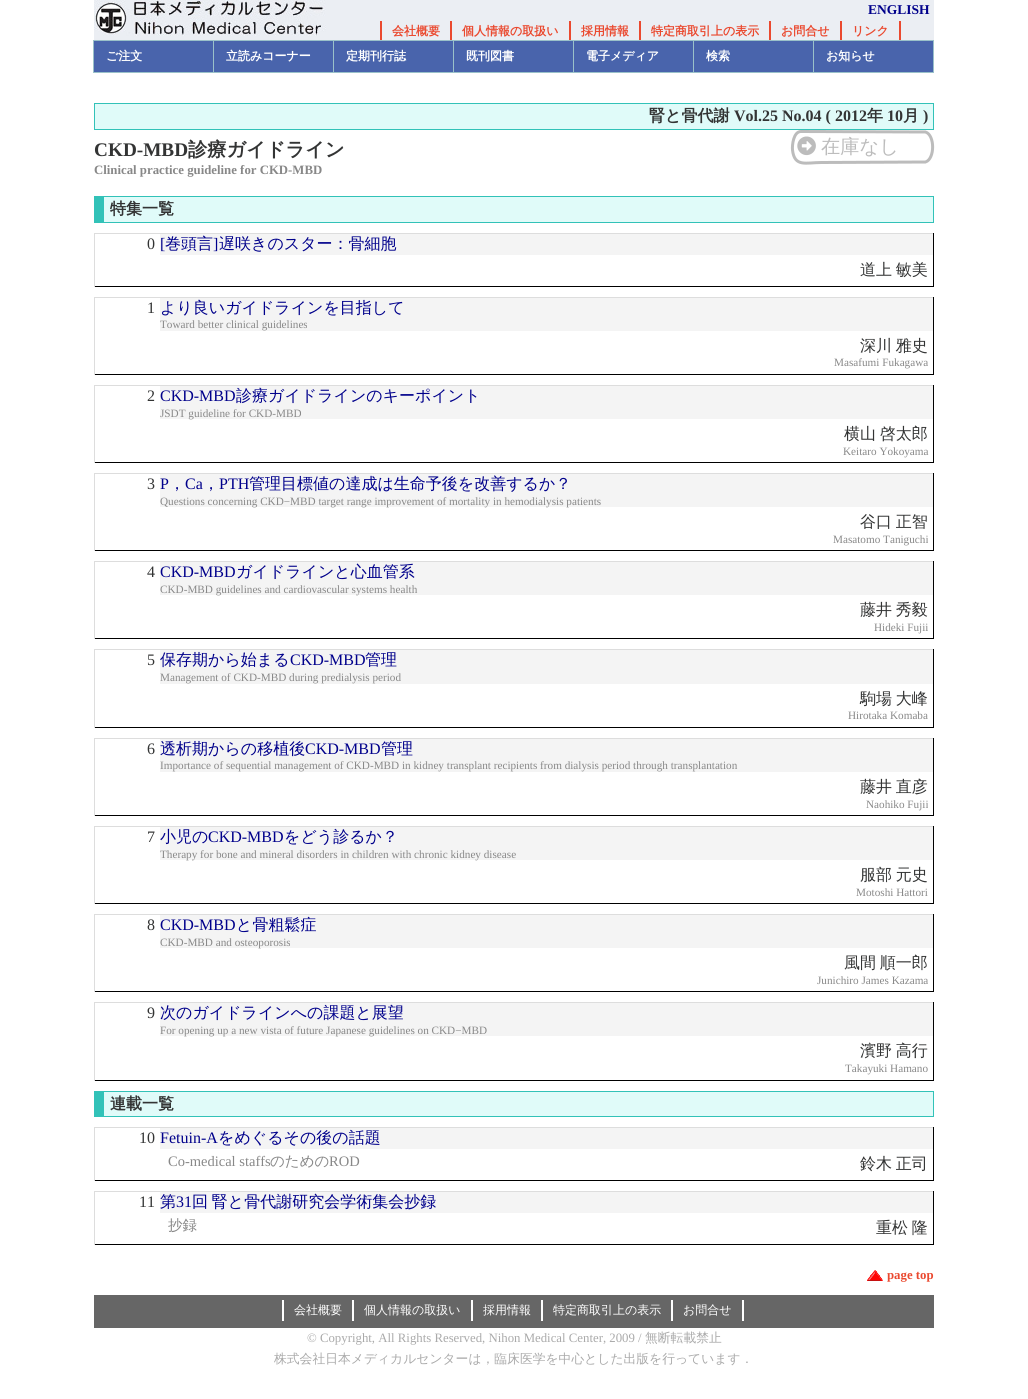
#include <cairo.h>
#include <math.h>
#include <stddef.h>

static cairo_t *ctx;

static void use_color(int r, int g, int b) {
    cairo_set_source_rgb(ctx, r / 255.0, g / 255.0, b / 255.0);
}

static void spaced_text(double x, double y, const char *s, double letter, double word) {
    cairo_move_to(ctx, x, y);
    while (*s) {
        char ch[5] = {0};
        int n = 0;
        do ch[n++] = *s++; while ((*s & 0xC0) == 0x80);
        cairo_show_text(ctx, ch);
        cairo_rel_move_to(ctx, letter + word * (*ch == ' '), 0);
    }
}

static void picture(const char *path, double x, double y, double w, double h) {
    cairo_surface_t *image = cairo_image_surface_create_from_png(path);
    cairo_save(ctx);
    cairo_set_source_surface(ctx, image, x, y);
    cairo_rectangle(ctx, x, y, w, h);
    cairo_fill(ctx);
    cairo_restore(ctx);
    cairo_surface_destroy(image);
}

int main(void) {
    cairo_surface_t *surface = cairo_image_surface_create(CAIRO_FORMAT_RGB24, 1028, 1399);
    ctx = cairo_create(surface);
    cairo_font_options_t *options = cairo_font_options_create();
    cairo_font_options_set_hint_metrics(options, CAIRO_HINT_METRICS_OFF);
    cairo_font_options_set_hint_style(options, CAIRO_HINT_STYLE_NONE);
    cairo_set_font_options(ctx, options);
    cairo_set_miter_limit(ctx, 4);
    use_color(255, 255, 255);
    cairo_paint(ctx);
    use_color(235, 238, 243);
    cairo_rectangle(ctx, 94, 0, 840, 40);
    cairo_fill(ctx);
    picture("img1.png", 94, 0, 232, 36);
    cairo_select_font_face(ctx, "Liberation Serif", CAIRO_FONT_SLANT_NORMAL, CAIRO_FONT_WEIGHT_BOLD);
    cairo_set_font_size(ctx, 13.5);
    use_color(0, 0, 139);
    cairo_move_to(ctx, 868, 14);
    cairo_show_text(ctx, "ENGLISH");
    use_color(234, 73, 47);
    cairo_rectangle(ctx, 450, 21, 2, 21);
    cairo_fill(ctx);
    cairo_rectangle(ctx, 380, 21, 2, 21);
    cairo_fill(ctx);
    cairo_select_font_face(ctx, "WenQuanYi Zen Hei", CAIRO_FONT_SLANT_NORMAL, CAIRO_FONT_WEIGHT_BOLD);
    cairo_set_font_size(ctx, 12);
    cairo_move_to(ctx, 392, 35);
    cairo_show_text(ctx, "会社概要");
    cairo_rectangle(ctx, 569, 21, 2, 21);
    cairo_fill(ctx);
    cairo_move_to(ctx, 462, 35);
    cairo_show_text(ctx, "個人情報の取扱い");
    cairo_rectangle(ctx, 639, 21, 2, 21);
    cairo_fill(ctx);
    cairo_move_to(ctx, 581, 35);
    cairo_show_text(ctx, "採用情報");
    cairo_rectangle(ctx, 769, 21, 2, 21);
    cairo_fill(ctx);
    cairo_move_to(ctx, 651, 35);
    cairo_show_text(ctx, "特定商取引上の表示");
    cairo_rectangle(ctx, 840, 21, 2, 21);
    cairo_fill(ctx);
    cairo_move_to(ctx, 781, 35);
    cairo_show_text(ctx, "お問合せ");
    cairo_rectangle(ctx, 899, 21, 2, 21);
    cairo_fill(ctx);
    cairo_move_to(ctx, 852, 35);
    cairo_show_text(ctx, "リンク");
    use_color(73, 100, 172);
    cairo_rectangle(ctx, 93.5, 40.5, 120, 32);
    cairo_fill_preserve(ctx);
    use_color(154, 193, 201);
    cairo_set_line_width(ctx, 1);
    cairo_stroke(ctx);
    use_color(255, 255, 255);
    cairo_move_to(ctx, 106, 60);
    cairo_show_text(ctx, "ご注文");
    use_color(73, 100, 172);
    cairo_rectangle(ctx, 213.5, 40.5, 120, 32);
    cairo_fill_preserve(ctx);
    use_color(154, 193, 201);
    cairo_stroke(ctx);
    use_color(255, 255, 255);
    cairo_move_to(ctx, 226, 60);
    cairo_show_text(ctx, "立読みコーナー");
    use_color(73, 100, 172);
    cairo_rectangle(ctx, 333.5, 40.5, 120, 32);
    cairo_fill_preserve(ctx);
    use_color(154, 193, 201);
    cairo_stroke(ctx);
    use_color(255, 255, 255);
    cairo_move_to(ctx, 346, 60);
    cairo_show_text(ctx, "定期刊行誌");
    use_color(73, 100, 172);
    cairo_rectangle(ctx, 453.5, 40.5, 120, 32);
    cairo_fill_preserve(ctx);
    use_color(154, 193, 201);
    cairo_stroke(ctx);
    use_color(255, 255, 255);
    cairo_move_to(ctx, 466, 60);
    cairo_show_text(ctx, "既刊図書");
    use_color(73, 100, 172);
    cairo_rectangle(ctx, 573.5, 40.5, 120, 32);
    cairo_fill_preserve(ctx);
    use_color(154, 193, 201);
    cairo_stroke(ctx);
    use_color(255, 255, 255);
    cairo_move_to(ctx, 586, 60);
    cairo_show_text(ctx, "電子メディア");
    use_color(73, 100, 172);
    cairo_rectangle(ctx, 693.5, 40.5, 120, 32);
    cairo_fill_preserve(ctx);
    use_color(154, 193, 201);
    cairo_stroke(ctx);
    use_color(255, 255, 255);
    cairo_move_to(ctx, 706, 60);
    cairo_show_text(ctx, "検索");
    use_color(73, 100, 172);
    cairo_rectangle(ctx, 813.5, 40.5, 120, 32);
    cairo_fill_preserve(ctx);
    use_color(154, 193, 201);
    cairo_stroke(ctx);
    use_color(255, 255, 255);
    cairo_move_to(ctx, 826, 60);
    cairo_show_text(ctx, "お知らせ");
    use_color(224, 251, 249);
    cairo_rectangle(ctx, 94.5, 103.5, 839, 26);
    cairo_fill_preserve(ctx);
    use_color(50, 194, 184);
    cairo_stroke(ctx);
    cairo_set_font_size(ctx, 16);
    use_color(51, 52, 52);
    cairo_move_to(ctx, 649, 121);
    cairo_show_text(ctx, "腎と骨代謝");
    cairo_select_font_face(ctx, "Liberation Serif", CAIRO_FONT_SLANT_NORMAL, CAIRO_FONT_WEIGHT_BOLD);
    cairo_move_to(ctx, 734, 121);
    cairo_show_text(ctx, "Vol.25 No.04 ( 2012");
    cairo_select_font_face(ctx, "WenQuanYi Zen Hei", CAIRO_FONT_SLANT_NORMAL, CAIRO_FONT_WEIGHT_BOLD);
    cairo_move_to(ctx, 867, 121);
    cairo_show_text(ctx, "年");
    cairo_select_font_face(ctx, "Liberation Serif", CAIRO_FONT_SLANT_NORMAL, CAIRO_FONT_WEIGHT_BOLD);
    cairo_move_to(ctx, 887, 121);
    cairo_show_text(ctx, "10");
    cairo_select_font_face(ctx, "WenQuanYi Zen Hei", CAIRO_FONT_SLANT_NORMAL, CAIRO_FONT_WEIGHT_BOLD);
    cairo_move_to(ctx, 903, 121);
    cairo_show_text(ctx, "月");
    cairo_select_font_face(ctx, "Liberation Serif", CAIRO_FONT_SLANT_NORMAL, CAIRO_FONT_WEIGHT_BOLD);
    cairo_move_to(ctx, 923, 121);
    cairo_show_text(ctx, ")");
    cairo_set_font_size(ctx, 19.25);
    cairo_move_to(ctx, 94, 156);
    cairo_show_text(ctx, "CKD-MBD");
    cairo_select_font_face(ctx, "WenQuanYi Zen Hei", CAIRO_FONT_SLANT_NORMAL, CAIRO_FONT_WEIGHT_BOLD);
    cairo_move_to(ctx, 188, 156);
    cairo_show_text(ctx, "診療ガイドライン");
    cairo_select_font_face(ctx, "Liberation Serif", CAIRO_FONT_SLANT_NORMAL, CAIRO_FONT_WEIGHT_BOLD);
    cairo_set_font_size(ctx, 12.8);
    use_color(136, 136, 136);
    cairo_move_to(ctx, 94, 174);
    cairo_show_text(ctx, "Clinical practice guideline for CKD-MBD");
    cairo_new_path(ctx);
    cairo_move_to(ctx, 801, 131.5);
    cairo_line_to(ctx, 925.5, 132);
    cairo_curve_to(ctx, 935, 135, 935, 159, 925.5, 162);
    cairo_line_to(ctx, 821.5, 162.5);
    cairo_curve_to(ctx, 806, 162.5, 794.5, 167.5, 792.5, 150);
    cairo_curve_to(ctx, 792, 145, 793.5, 131.5, 801, 131.5);
    cairo_close_path(ctx);
    use_color(188, 188, 188);
    cairo_set_line_width(ctx, 3);
    cairo_stroke(ctx);
    picture("img2.png", 797, 136, 19, 20);
    cairo_select_font_face(ctx, "WenQuanYi Zen Hei Medium", CAIRO_FONT_SLANT_NORMAL, CAIRO_FONT_WEIGHT_NORMAL);
    cairo_set_font_size(ctx, 19.25);
    cairo_move_to(ctx, 821, 153);
    cairo_show_text(ctx, "在庫なし");
    use_color(224, 251, 249);
    cairo_rectangle(ctx, 104, 197, 829, 25);
    cairo_fill(ctx);
    use_color(50, 194, 184);
    cairo_rectangle(ctx, 95, 197, 9, 25);
    cairo_fill(ctx);
    cairo_rectangle(ctx, 94.5, 196.5, 839, 26);
    cairo_set_line_width(ctx, 1);
    cairo_stroke(ctx);
    cairo_select_font_face(ctx, "WenQuanYi Zen Hei", CAIRO_FONT_SLANT_NORMAL, CAIRO_FONT_WEIGHT_BOLD);
    cairo_set_font_size(ctx, 16);
    use_color(51, 52, 52);
    cairo_move_to(ctx, 110, 214);
    cairo_show_text(ctx, "特集一覧");
    use_color(221, 221, 221);
    cairo_rectangle(ctx, 94, 233, 840, 1);
    cairo_fill(ctx);
    use_color(0, 0, 0);
    cairo_rectangle(ctx, 933, 233, 1, 54);
    cairo_fill(ctx);
    cairo_rectangle(ctx, 94, 286, 840, 1);
    cairo_fill(ctx);
    use_color(221, 221, 221);
    cairo_rectangle(ctx, 94, 233, 1, 54);
    cairo_fill(ctx);
    cairo_select_font_face(ctx, "Liberation Serif", CAIRO_FONT_SLANT_NORMAL, CAIRO_FONT_WEIGHT_NORMAL);
    use_color(51, 52, 52);
    cairo_move_to(ctx, 147, 249);
    cairo_show_text(ctx, "0");
    use_color(244, 244, 244);
    cairo_rectangle(ctx, 160, 234, 773, 21);
    cairo_fill(ctx);
    use_color(0, 0, 139);
    cairo_move_to(ctx, 160, 249);
    cairo_show_text(ctx, "[");
    cairo_select_font_face(ctx, "WenQuanYi Zen Hei Medium", CAIRO_FONT_SLANT_NORMAL, CAIRO_FONT_WEIGHT_NORMAL);
    cairo_move_to(ctx, 165, 249);
    cairo_show_text(ctx, "巻頭言");
    cairo_select_font_face(ctx, "Liberation Serif", CAIRO_FONT_SLANT_NORMAL, CAIRO_FONT_WEIGHT_NORMAL);
    cairo_move_to(ctx, 213, 249);
    cairo_show_text(ctx, "]");
    cairo_select_font_face(ctx, "WenQuanYi Zen Hei Medium", CAIRO_FONT_SLANT_NORMAL, CAIRO_FONT_WEIGHT_NORMAL);
    cairo_move_to(ctx, 219, 249);
    cairo_show_text(ctx, "遅咲きのスター：骨細胞");
    use_color(51, 52, 52);
    spaced_text(860, 275, "道上 敏美", 0, -1);
    use_color(221, 221, 221);
    cairo_rectangle(ctx, 94, 297, 840, 1);
    cairo_fill(ctx);
    use_color(0, 0, 0);
    cairo_rectangle(ctx, 933, 297, 1, 78);
    cairo_fill(ctx);
    cairo_rectangle(ctx, 94, 374, 840, 1);
    cairo_fill(ctx);
    use_color(221, 221, 221);
    cairo_rectangle(ctx, 94, 297, 1, 78);
    cairo_fill(ctx);
    cairo_select_font_face(ctx, "Liberation Serif", CAIRO_FONT_SLANT_NORMAL, CAIRO_FONT_WEIGHT_NORMAL);
    use_color(51, 52, 52);
    cairo_move_to(ctx, 147, 313);
    cairo_show_text(ctx, "1");
    use_color(244, 244, 244);
    cairo_rectangle(ctx, 160, 298, 773, 33);
    cairo_fill(ctx);
    cairo_select_font_face(ctx, "WenQuanYi Zen Hei Medium", CAIRO_FONT_SLANT_NORMAL, CAIRO_FONT_WEIGHT_NORMAL);
    use_color(0, 0, 139);
    cairo_move_to(ctx, 160, 313);
    cairo_show_text(ctx, "より良いガイドラインを目指して");
    cairo_select_font_face(ctx, "Liberation Serif", CAIRO_FONT_SLANT_NORMAL, CAIRO_FONT_WEIGHT_NORMAL);
    cairo_set_font_size(ctx, 11.2);
    use_color(136, 136, 136);
    cairo_move_to(ctx, 160, 328);
    cairo_show_text(ctx, "Toward better clinical guidelines");
    cairo_select_font_face(ctx, "WenQuanYi Zen Hei Medium", CAIRO_FONT_SLANT_NORMAL, CAIRO_FONT_WEIGHT_NORMAL);
    cairo_set_font_size(ctx, 16);
    use_color(51, 52, 52);
    spaced_text(860, 351, "深川 雅史", 0, -1);
    cairo_select_font_face(ctx, "Liberation Serif", CAIRO_FONT_SLANT_NORMAL, CAIRO_FONT_WEIGHT_NORMAL);
    cairo_set_font_size(ctx, 11.2);
    use_color(136, 136, 136);
    cairo_move_to(ctx, 834, 366);
    cairo_show_text(ctx, "Masafumi Fukagawa");
    use_color(221, 221, 221);
    cairo_rectangle(ctx, 94, 385, 840, 1);
    cairo_fill(ctx);
    use_color(0, 0, 0);
    cairo_rectangle(ctx, 933, 385, 1, 78);
    cairo_fill(ctx);
    cairo_rectangle(ctx, 94, 462, 840, 1);
    cairo_fill(ctx);
    use_color(221, 221, 221);
    cairo_rectangle(ctx, 94, 385, 1, 78);
    cairo_fill(ctx);
    cairo_set_font_size(ctx, 16);
    use_color(51, 52, 52);
    cairo_move_to(ctx, 147, 401);
    cairo_show_text(ctx, "2");
    use_color(244, 244, 244);
    cairo_rectangle(ctx, 160, 386, 773, 33);
    cairo_fill(ctx);
    use_color(0, 0, 139);
    cairo_move_to(ctx, 160, 401);
    cairo_show_text(ctx, "CKD-MBD");
    cairo_select_font_face(ctx, "WenQuanYi Zen Hei Medium", CAIRO_FONT_SLANT_NORMAL, CAIRO_FONT_WEIGHT_NORMAL);
    cairo_move_to(ctx, 236, 401);
    cairo_show_text(ctx, "診療ガイドラインのキーポイント");
    cairo_select_font_face(ctx, "Liberation Serif", CAIRO_FONT_SLANT_NORMAL, CAIRO_FONT_WEIGHT_NORMAL);
    cairo_set_font_size(ctx, 11.2);
    use_color(136, 136, 136);
    cairo_move_to(ctx, 160, 417);
    cairo_show_text(ctx, "JSDT guideline for CKD-MBD");
    cairo_select_font_face(ctx, "WenQuanYi Zen Hei Medium", CAIRO_FONT_SLANT_NORMAL, CAIRO_FONT_WEIGHT_NORMAL);
    cairo_set_font_size(ctx, 16);
    use_color(51, 52, 52);
    spaced_text(844, 439, "横山 啓太郎", 0, -1);
    cairo_select_font_face(ctx, "Liberation Serif", CAIRO_FONT_SLANT_NORMAL, CAIRO_FONT_WEIGHT_NORMAL);
    cairo_set_font_size(ctx, 11.2);
    use_color(136, 136, 136);
    cairo_move_to(ctx, 843, 455);
    cairo_show_text(ctx, "Keitaro Yokoyama");
    use_color(221, 221, 221);
    cairo_rectangle(ctx, 94, 473, 840, 1);
    cairo_fill(ctx);
    use_color(0, 0, 0);
    cairo_rectangle(ctx, 933, 473, 1, 78);
    cairo_fill(ctx);
    cairo_rectangle(ctx, 94, 550, 840, 1);
    cairo_fill(ctx);
    use_color(221, 221, 221);
    cairo_rectangle(ctx, 94, 473, 1, 78);
    cairo_fill(ctx);
    cairo_set_font_size(ctx, 16);
    use_color(51, 52, 52);
    cairo_move_to(ctx, 147, 489);
    cairo_show_text(ctx, "3");
    use_color(244, 244, 244);
    cairo_rectangle(ctx, 160, 474, 773, 33);
    cairo_fill(ctx);
    use_color(0, 0, 139);
    cairo_move_to(ctx, 160, 489);
    cairo_show_text(ctx, "P");
    cairo_move_to(ctx, 185, 489);
    cairo_show_text(ctx, "Ca");
    cairo_move_to(ctx, 219, 489);
    cairo_show_text(ctx, "PTH");
    cairo_select_font_face(ctx, "WenQuanYi Zen Hei Medium", CAIRO_FONT_SLANT_NORMAL, CAIRO_FONT_WEIGHT_NORMAL);
    cairo_move_to(ctx, 249, 489);
    cairo_show_text(ctx, "管理目標値の達成は生命予後を改善するか？");
    cairo_move_to(ctx, 169, 489);
    cairo_show_text(ctx, "，");
    cairo_move_to(ctx, 203, 489);
    cairo_show_text(ctx, "，");
    cairo_select_font_face(ctx, "Liberation Serif", CAIRO_FONT_SLANT_NORMAL, CAIRO_FONT_WEIGHT_NORMAL);
    cairo_set_font_size(ctx, 11.2);
    use_color(136, 136, 136);
    cairo_move_to(ctx, 160, 505);
    cairo_show_text(ctx, "Questions concerning CKD−MBD target range improvement of mortality in hemodialysis patients");
    cairo_select_font_face(ctx, "WenQuanYi Zen Hei Medium", CAIRO_FONT_SLANT_NORMAL, CAIRO_FONT_WEIGHT_NORMAL);
    cairo_set_font_size(ctx, 16);
    use_color(51, 52, 52);
    spaced_text(860, 527, "谷口 正智", 0, -1);
    cairo_select_font_face(ctx, "Liberation Serif", CAIRO_FONT_SLANT_NORMAL, CAIRO_FONT_WEIGHT_NORMAL);
    cairo_set_font_size(ctx, 11.2);
    use_color(136, 136, 136);
    cairo_move_to(ctx, 833, 543);
    cairo_show_text(ctx, "Masatomo Taniguchi");
    use_color(221, 221, 221);
    cairo_rectangle(ctx, 94, 561, 840, 1);
    cairo_fill(ctx);
    use_color(0, 0, 0);
    cairo_rectangle(ctx, 933, 561, 1, 78);
    cairo_fill(ctx);
    cairo_rectangle(ctx, 94, 638, 840, 1);
    cairo_fill(ctx);
    use_color(221, 221, 221);
    cairo_rectangle(ctx, 94, 561, 1, 78);
    cairo_fill(ctx);
    cairo_set_font_size(ctx, 16);
    use_color(51, 52, 52);
    cairo_move_to(ctx, 147, 577);
    cairo_show_text(ctx, "4");
    use_color(244, 244, 244);
    cairo_rectangle(ctx, 160, 562, 773, 33);
    cairo_fill(ctx);
    use_color(0, 0, 139);
    cairo_move_to(ctx, 160, 577);
    cairo_show_text(ctx, "CKD-MBD");
    cairo_select_font_face(ctx, "WenQuanYi Zen Hei Medium", CAIRO_FONT_SLANT_NORMAL, CAIRO_FONT_WEIGHT_NORMAL);
    cairo_move_to(ctx, 236, 577);
    cairo_show_text(ctx, "ガイドラインと心血管系");
    cairo_select_font_face(ctx, "Liberation Serif", CAIRO_FONT_SLANT_NORMAL, CAIRO_FONT_WEIGHT_NORMAL);
    cairo_set_font_size(ctx, 11.2);
    use_color(136, 136, 136);
    cairo_move_to(ctx, 160, 593);
    cairo_show_text(ctx, "CKD-MBD guidelines and cardiovascular systems health");
    cairo_select_font_face(ctx, "WenQuanYi Zen Hei Medium", CAIRO_FONT_SLANT_NORMAL, CAIRO_FONT_WEIGHT_NORMAL);
    cairo_set_font_size(ctx, 16);
    use_color(51, 52, 52);
    spaced_text(860, 615, "藤井 秀毅", 0, -1);
    cairo_select_font_face(ctx, "Liberation Serif", CAIRO_FONT_SLANT_NORMAL, CAIRO_FONT_WEIGHT_NORMAL);
    cairo_set_font_size(ctx, 11.2);
    use_color(136, 136, 136);
    cairo_move_to(ctx, 874, 631);
    cairo_show_text(ctx, "Hideki Fujii");
    use_color(221, 221, 221);
    cairo_rectangle(ctx, 94, 649, 840, 1);
    cairo_fill(ctx);
    use_color(0, 0, 0);
    cairo_rectangle(ctx, 933, 649, 1, 79);
    cairo_fill(ctx);
    cairo_rectangle(ctx, 94, 727, 840, 1);
    cairo_fill(ctx);
    use_color(221, 221, 221);
    cairo_rectangle(ctx, 94, 649, 1, 79);
    cairo_fill(ctx);
    cairo_set_font_size(ctx, 16);
    use_color(51, 52, 52);
    cairo_move_to(ctx, 147, 665);
    cairo_show_text(ctx, "5");
    use_color(244, 244, 244);
    cairo_rectangle(ctx, 160, 650, 773, 34);
    cairo_fill(ctx);
    cairo_select_font_face(ctx, "WenQuanYi Zen Hei Medium", CAIRO_FONT_SLANT_NORMAL, CAIRO_FONT_WEIGHT_NORMAL);
    use_color(0, 0, 139);
    cairo_move_to(ctx, 160, 665);
    cairo_show_text(ctx, "保存期から始まる");
    cairo_select_font_face(ctx, "Liberation Serif", CAIRO_FONT_SLANT_NORMAL, CAIRO_FONT_WEIGHT_NORMAL);
    cairo_move_to(ctx, 290, 665);
    cairo_show_text(ctx, "CKD-MBD");
    cairo_select_font_face(ctx, "WenQuanYi Zen Hei Medium", CAIRO_FONT_SLANT_NORMAL, CAIRO_FONT_WEIGHT_NORMAL);
    cairo_move_to(ctx, 365, 665);
    cairo_show_text(ctx, "管理");
    cairo_select_font_face(ctx, "Liberation Serif", CAIRO_FONT_SLANT_NORMAL, CAIRO_FONT_WEIGHT_NORMAL);
    cairo_set_font_size(ctx, 11.2);
    use_color(136, 136, 136);
    cairo_move_to(ctx, 160, 681);
    cairo_show_text(ctx, "Management of CKD-MBD during predialysis period");
    cairo_select_font_face(ctx, "WenQuanYi Zen Hei Medium", CAIRO_FONT_SLANT_NORMAL, CAIRO_FONT_WEIGHT_NORMAL);
    cairo_set_font_size(ctx, 16);
    use_color(51, 52, 52);
    spaced_text(860, 704, "駒場 大峰", 0, -1);
    cairo_select_font_face(ctx, "Liberation Serif", CAIRO_FONT_SLANT_NORMAL, CAIRO_FONT_WEIGHT_NORMAL);
    cairo_set_font_size(ctx, 11.2);
    use_color(136, 136, 136);
    cairo_move_to(ctx, 848, 719);
    cairo_show_text(ctx, "Hirotaka Komaba");
    use_color(221, 221, 221);
    cairo_rectangle(ctx, 94, 738, 840, 1);
    cairo_fill(ctx);
    use_color(0, 0, 0);
    cairo_rectangle(ctx, 933, 738, 1, 78);
    cairo_fill(ctx);
    cairo_rectangle(ctx, 94, 815, 840, 1);
    cairo_fill(ctx);
    use_color(221, 221, 221);
    cairo_rectangle(ctx, 94, 738, 1, 78);
    cairo_fill(ctx);
    cairo_set_font_size(ctx, 16);
    use_color(51, 52, 52);
    cairo_move_to(ctx, 147, 754);
    cairo_show_text(ctx, "6");
    use_color(244, 244, 244);
    cairo_rectangle(ctx, 160, 739, 773, 33);
    cairo_fill(ctx);
    cairo_select_font_face(ctx, "WenQuanYi Zen Hei Medium", CAIRO_FONT_SLANT_NORMAL, CAIRO_FONT_WEIGHT_NORMAL);
    use_color(0, 0, 139);
    cairo_move_to(ctx, 160, 754);
    cairo_show_text(ctx, "透析期からの移植後");
    cairo_select_font_face(ctx, "Liberation Serif", CAIRO_FONT_SLANT_NORMAL, CAIRO_FONT_WEIGHT_NORMAL);
    cairo_move_to(ctx, 305, 754);
    cairo_show_text(ctx, "CKD-MBD");
    cairo_select_font_face(ctx, "WenQuanYi Zen Hei Medium", CAIRO_FONT_SLANT_NORMAL, CAIRO_FONT_WEIGHT_NORMAL);
    cairo_move_to(ctx, 381, 754);
    cairo_show_text(ctx, "管理");
    cairo_select_font_face(ctx, "Liberation Serif", CAIRO_FONT_SLANT_NORMAL, CAIRO_FONT_WEIGHT_NORMAL);
    cairo_set_font_size(ctx, 11.2);
    use_color(136, 136, 136);
    cairo_move_to(ctx, 160, 769);
    cairo_show_text(ctx, "Importance of sequential management of CKD-MBD in kidney transplant recipients from dialysis period through transplantation");
    cairo_select_font_face(ctx, "WenQuanYi Zen Hei Medium", CAIRO_FONT_SLANT_NORMAL, CAIRO_FONT_WEIGHT_NORMAL);
    cairo_set_font_size(ctx, 16);
    use_color(51, 52, 52);
    spaced_text(860, 792, "藤井 直彦", 0, -1);
    cairo_select_font_face(ctx, "Liberation Serif", CAIRO_FONT_SLANT_NORMAL, CAIRO_FONT_WEIGHT_NORMAL);
    cairo_set_font_size(ctx, 11.2);
    use_color(136, 136, 136);
    cairo_move_to(ctx, 866, 808);
    cairo_show_text(ctx, "Naohiko Fujii");
    use_color(221, 221, 221);
    cairo_rectangle(ctx, 94, 826, 840, 1);
    cairo_fill(ctx);
    use_color(0, 0, 0);
    cairo_rectangle(ctx, 933, 826, 1, 78);
    cairo_fill(ctx);
    cairo_rectangle(ctx, 94, 903, 840, 1);
    cairo_fill(ctx);
    use_color(221, 221, 221);
    cairo_rectangle(ctx, 94, 826, 1, 78);
    cairo_fill(ctx);
    cairo_set_font_size(ctx, 16);
    use_color(51, 52, 52);
    cairo_move_to(ctx, 147, 842);
    cairo_show_text(ctx, "7");
    use_color(244, 244, 244);
    cairo_rectangle(ctx, 160, 827, 773, 33);
    cairo_fill(ctx);
    cairo_select_font_face(ctx, "WenQuanYi Zen Hei Medium", CAIRO_FONT_SLANT_NORMAL, CAIRO_FONT_WEIGHT_NORMAL);
    use_color(0, 0, 139);
    cairo_move_to(ctx, 160, 842);
    cairo_show_text(ctx, "小児の");
    cairo_select_font_face(ctx, "Liberation Serif", CAIRO_FONT_SLANT_NORMAL, CAIRO_FONT_WEIGHT_NORMAL);
    cairo_move_to(ctx, 208, 842);
    cairo_show_text(ctx, "CKD-MBD");
    cairo_select_font_face(ctx, "WenQuanYi Zen Hei Medium", CAIRO_FONT_SLANT_NORMAL, CAIRO_FONT_WEIGHT_NORMAL);
    cairo_move_to(ctx, 284, 842);
    cairo_show_text(ctx, "をどう診るか？");
    cairo_select_font_face(ctx, "Liberation Serif", CAIRO_FONT_SLANT_NORMAL, CAIRO_FONT_WEIGHT_NORMAL);
    cairo_set_font_size(ctx, 11.2);
    use_color(136, 136, 136);
    cairo_move_to(ctx, 160, 858);
    cairo_show_text(ctx, "Therapy for bone and mineral disorders in children with chronic kidney disease");
    cairo_select_font_face(ctx, "WenQuanYi Zen Hei Medium", CAIRO_FONT_SLANT_NORMAL, CAIRO_FONT_WEIGHT_NORMAL);
    cairo_set_font_size(ctx, 16);
    use_color(51, 52, 52);
    spaced_text(860, 880, "服部 元史", 0, -1);
    cairo_select_font_face(ctx, "Liberation Serif", CAIRO_FONT_SLANT_NORMAL, CAIRO_FONT_WEIGHT_NORMAL);
    cairo_set_font_size(ctx, 11.2);
    use_color(136, 136, 136);
    cairo_move_to(ctx, 856, 896);
    cairo_show_text(ctx, "Motoshi Hattori");
    use_color(221, 221, 221);
    cairo_rectangle(ctx, 94, 914, 840, 1);
    cairo_fill(ctx);
    use_color(0, 0, 0);
    cairo_rectangle(ctx, 933, 914, 1, 78);
    cairo_fill(ctx);
    cairo_rectangle(ctx, 94, 991, 840, 1);
    cairo_fill(ctx);
    use_color(221, 221, 221);
    cairo_rectangle(ctx, 94, 914, 1, 78);
    cairo_fill(ctx);
    cairo_set_font_size(ctx, 16);
    use_color(51, 52, 52);
    cairo_move_to(ctx, 147, 930);
    cairo_show_text(ctx, "8");
    use_color(244, 244, 244);
    cairo_rectangle(ctx, 160, 915, 773, 33);
    cairo_fill(ctx);
    use_color(0, 0, 139);
    cairo_move_to(ctx, 160, 930);
    cairo_show_text(ctx, "CKD-MBD");
    cairo_select_font_face(ctx, "WenQuanYi Zen Hei Medium", CAIRO_FONT_SLANT_NORMAL, CAIRO_FONT_WEIGHT_NORMAL);
    cairo_move_to(ctx, 236, 930);
    cairo_show_text(ctx, "と骨粗鬆症");
    cairo_select_font_face(ctx, "Liberation Serif", CAIRO_FONT_SLANT_NORMAL, CAIRO_FONT_WEIGHT_NORMAL);
    cairo_set_font_size(ctx, 11.2);
    use_color(136, 136, 136);
    cairo_move_to(ctx, 160, 946);
    cairo_show_text(ctx, "CKD-MBD and osteoporosis");
    cairo_select_font_face(ctx, "WenQuanYi Zen Hei Medium", CAIRO_FONT_SLANT_NORMAL, CAIRO_FONT_WEIGHT_NORMAL);
    cairo_set_font_size(ctx, 16);
    use_color(51, 52, 52);
    spaced_text(844, 968, "風間 順一郎", 0, -1);
    cairo_select_font_face(ctx, "Liberation Serif", CAIRO_FONT_SLANT_NORMAL, CAIRO_FONT_WEIGHT_NORMAL);
    cairo_set_font_size(ctx, 11.2);
    use_color(136, 136, 136);
    cairo_move_to(ctx, 817, 984);
    cairo_show_text(ctx, "Junichiro James Kazama");
    use_color(221, 221, 221);
    cairo_rectangle(ctx, 94, 1002, 840, 1);
    cairo_fill(ctx);
    use_color(0, 0, 0);
    cairo_rectangle(ctx, 933, 1002, 1, 79);
    cairo_fill(ctx);
    cairo_rectangle(ctx, 94, 1080, 840, 1);
    cairo_fill(ctx);
    use_color(221, 221, 221);
    cairo_rectangle(ctx, 94, 1002, 1, 79);
    cairo_fill(ctx);
    cairo_set_font_size(ctx, 16);
    use_color(51, 52, 52);
    cairo_move_to(ctx, 147, 1018);
    cairo_show_text(ctx, "9");
    use_color(244, 244, 244);
    cairo_rectangle(ctx, 160, 1003, 773, 33);
    cairo_fill(ctx);
    cairo_select_font_face(ctx, "WenQuanYi Zen Hei Medium", CAIRO_FONT_SLANT_NORMAL, CAIRO_FONT_WEIGHT_NORMAL);
    use_color(0, 0, 139);
    cairo_move_to(ctx, 160, 1018);
    cairo_show_text(ctx, "次のガイドラインへの課題と展望");
    cairo_select_font_face(ctx, "Liberation Serif", CAIRO_FONT_SLANT_NORMAL, CAIRO_FONT_WEIGHT_NORMAL);
    cairo_set_font_size(ctx, 11.2);
    use_color(136, 136, 136);
    cairo_move_to(ctx, 160, 1034);
    cairo_show_text(ctx, "For opening up a new vista of future Japanese guidelines on CKD−MBD");
    cairo_select_font_face(ctx, "WenQuanYi Zen Hei Medium", CAIRO_FONT_SLANT_NORMAL, CAIRO_FONT_WEIGHT_NORMAL);
    cairo_set_font_size(ctx, 16);
    use_color(51, 52, 52);
    spaced_text(860, 1056, "濱野 高行", 0, -1);
    cairo_select_font_face(ctx, "Liberation Serif", CAIRO_FONT_SLANT_NORMAL, CAIRO_FONT_WEIGHT_NORMAL);
    cairo_set_font_size(ctx, 11.2);
    use_color(136, 136, 136);
    cairo_move_to(ctx, 845, 1072);
    cairo_show_text(ctx, "Takayuki Hamano");
    use_color(224, 251, 249);
    cairo_rectangle(ctx, 104, 1092, 829, 24);
    cairo_fill(ctx);
    use_color(50, 194, 184);
    cairo_rectangle(ctx, 95, 1092, 9, 24);
    cairo_fill(ctx);
    cairo_rectangle(ctx, 94.5, 1091.5, 839, 25);
    cairo_stroke(ctx);
    cairo_select_font_face(ctx, "WenQuanYi Zen Hei", CAIRO_FONT_SLANT_NORMAL, CAIRO_FONT_WEIGHT_BOLD);
    cairo_set_font_size(ctx, 16);
    use_color(51, 52, 52);
    cairo_move_to(ctx, 110, 1109);
    cairo_show_text(ctx, "連載一覧");
    use_color(221, 221, 221);
    cairo_rectangle(ctx, 94, 1127, 840, 1);
    cairo_fill(ctx);
    use_color(0, 0, 0);
    cairo_rectangle(ctx, 933, 1127, 1, 54);
    cairo_fill(ctx);
    cairo_rectangle(ctx, 94, 1180, 840, 1);
    cairo_fill(ctx);
    use_color(221, 221, 221);
    cairo_rectangle(ctx, 94, 1127, 1, 54);
    cairo_fill(ctx);
    cairo_select_font_face(ctx, "Liberation Serif", CAIRO_FONT_SLANT_NORMAL, CAIRO_FONT_WEIGHT_NORMAL);
    use_color(51, 52, 52);
    cairo_move_to(ctx, 139, 1143);
    cairo_show_text(ctx, "10");
    use_color(244, 244, 244);
    cairo_rectangle(ctx, 160, 1128, 773, 21);
    cairo_fill(ctx);
    use_color(0, 0, 139);
    cairo_move_to(ctx, 160, 1143);
    cairo_show_text(ctx, "Fetuin-A");
    cairo_select_font_face(ctx, "WenQuanYi Zen Hei Medium", CAIRO_FONT_SLANT_NORMAL, CAIRO_FONT_WEIGHT_NORMAL);
    cairo_move_to(ctx, 218, 1143);
    cairo_show_text(ctx, "をめぐるその後の話題");
    cairo_select_font_face(ctx, "Liberation Serif", CAIRO_FONT_SLANT_NORMAL, CAIRO_FONT_WEIGHT_NORMAL);
    cairo_set_font_size(ctx, 14.5);
    use_color(136, 136, 136);
    cairo_move_to(ctx, 168, 1166);
    cairo_show_text(ctx, "Co-medical staffs");
    cairo_select_font_face(ctx, "WenQuanYi Zen Hei Medium", CAIRO_FONT_SLANT_NORMAL, CAIRO_FONT_WEIGHT_NORMAL);
    cairo_move_to(ctx, 270, 1166);
    cairo_show_text(ctx, "のための");
    cairo_select_font_face(ctx, "Liberation Serif", CAIRO_FONT_SLANT_NORMAL, CAIRO_FONT_WEIGHT_NORMAL);
    cairo_move_to(ctx, 329, 1166);
    cairo_show_text(ctx, "ROD");
    cairo_select_font_face(ctx, "WenQuanYi Zen Hei Medium", CAIRO_FONT_SLANT_NORMAL, CAIRO_FONT_WEIGHT_NORMAL);
    cairo_set_font_size(ctx, 16);
    use_color(51, 52, 52);
    spaced_text(860, 1169, "鈴木 正司", 0, -1);
    use_color(221, 221, 221);
    cairo_rectangle(ctx, 94, 1191, 840, 1);
    cairo_fill(ctx);
    use_color(0, 0, 0);
    cairo_rectangle(ctx, 933, 1191, 1, 54);
    cairo_fill(ctx);
    cairo_rectangle(ctx, 94, 1244, 840, 1);
    cairo_fill(ctx);
    use_color(221, 221, 221);
    cairo_rectangle(ctx, 94, 1191, 1, 54);
    cairo_fill(ctx);
    cairo_select_font_face(ctx, "Liberation Serif", CAIRO_FONT_SLANT_NORMAL, CAIRO_FONT_WEIGHT_NORMAL);
    use_color(51, 52, 52);
    cairo_move_to(ctx, 139, 1207);
    cairo_show_text(ctx, "11");
    use_color(244, 244, 244);
    cairo_rectangle(ctx, 160, 1192, 773, 21);
    cairo_fill(ctx);
    cairo_select_font_face(ctx, "WenQuanYi Zen Hei Medium", CAIRO_FONT_SLANT_NORMAL, CAIRO_FONT_WEIGHT_NORMAL);
    use_color(0, 0, 139);
    cairo_move_to(ctx, 160, 1207);
    cairo_show_text(ctx, "第");
    cairo_select_font_face(ctx, "Liberation Serif", CAIRO_FONT_SLANT_NORMAL, CAIRO_FONT_WEIGHT_NORMAL);
    cairo_move_to(ctx, 176, 1207);
    cairo_show_text(ctx, "31");
    cairo_select_font_face(ctx, "WenQuanYi Zen Hei Medium", CAIRO_FONT_SLANT_NORMAL, CAIRO_FONT_WEIGHT_NORMAL);
    spaced_text(192, 1207, "回 腎と骨代謝研究会学術集会抄録", 0, -1);
    cairo_set_font_size(ctx, 14.5);
    use_color(136, 136, 136);
    cairo_move_to(ctx, 168, 1230);
    cairo_show_text(ctx, "抄録");
    cairo_set_font_size(ctx, 16);
    use_color(51, 52, 52);
    spaced_text(876, 1233, "重松 隆", 0, -1);
    picture("img3.png", 867, 1270, 16, 11);
    cairo_select_font_face(ctx, "Liberation Serif", CAIRO_FONT_SLANT_NORMAL, CAIRO_FONT_WEIGHT_BOLD);
    cairo_set_font_size(ctx, 12.8);
    use_color(234, 73, 47);
    cairo_move_to(ctx, 887, 1279);
    cairo_show_text(ctx, "page top");
    use_color(102, 102, 102);
    cairo_rectangle(ctx, 94, 1295, 840, 33);
    cairo_fill(ctx);
    use_color(255, 255, 255);
    cairo_rectangle(ctx, 352, 1300, 2, 21);
    cairo_fill(ctx);
    cairo_rectangle(ctx, 282, 1300, 2, 21);
    cairo_fill(ctx);
    cairo_select_font_face(ctx, "WenQuanYi Zen Hei Medium", CAIRO_FONT_SLANT_NORMAL, CAIRO_FONT_WEIGHT_NORMAL);
    cairo_set_font_size(ctx, 12);
    cairo_move_to(ctx, 294, 1314);
    cairo_show_text(ctx, "会社概要");
    cairo_rectangle(ctx, 471, 1300, 2, 21);
    cairo_fill(ctx);
    cairo_move_to(ctx, 364, 1314);
    cairo_show_text(ctx, "個人情報の取扱い");
    cairo_rectangle(ctx, 541, 1300, 2, 21);
    cairo_fill(ctx);
    cairo_move_to(ctx, 483, 1314);
    cairo_show_text(ctx, "採用情報");
    cairo_rectangle(ctx, 671, 1300, 2, 21);
    cairo_fill(ctx);
    cairo_move_to(ctx, 553, 1314);
    cairo_show_text(ctx, "特定商取引上の表示");
    cairo_rectangle(ctx, 742, 1300, 2, 21);
    cairo_fill(ctx);
    cairo_move_to(ctx, 683, 1314);
    cairo_show_text(ctx, "お問合せ");
    cairo_select_font_face(ctx, "Liberation Serif", CAIRO_FONT_SLANT_NORMAL, CAIRO_FONT_WEIGHT_NORMAL);
    cairo_set_font_size(ctx, 12.8);
    use_color(170, 170, 170);
    cairo_move_to(ctx, 307, 1342);
    cairo_show_text(ctx, "© Copyright, All Rights Reserved, Nihon Medical Center, 2009 /");
    cairo_select_font_face(ctx, "WenQuanYi Zen Hei Medium", CAIRO_FONT_SLANT_NORMAL, CAIRO_FONT_WEIGHT_NORMAL);
    cairo_move_to(ctx, 645, 1342);
    cairo_show_text(ctx, "無断転載禁止");
    cairo_move_to(ctx, 274, 1363);
    cairo_show_text(ctx, "株式会社日本メディカルセンターは，臨床医学を中心とした出版を行っています．");
    cairo_surface_write_to_png(surface, "result.png");
    cairo_font_options_destroy(options);
    cairo_destroy(ctx);
    cairo_surface_destroy(surface);
    return 0;
}
